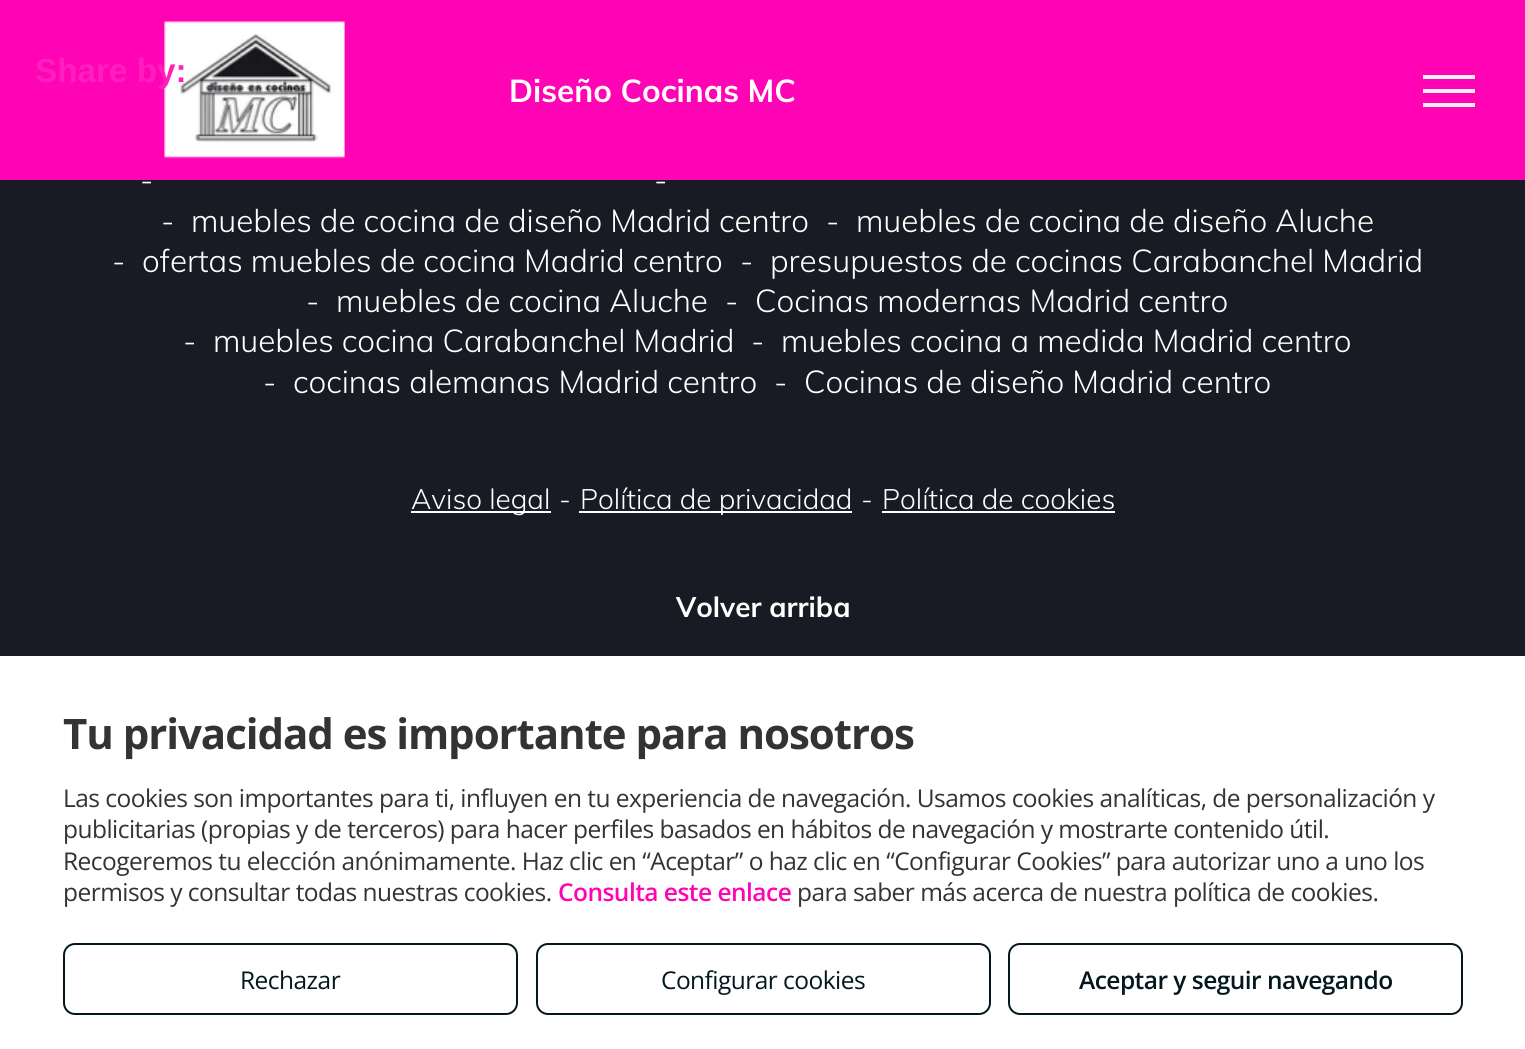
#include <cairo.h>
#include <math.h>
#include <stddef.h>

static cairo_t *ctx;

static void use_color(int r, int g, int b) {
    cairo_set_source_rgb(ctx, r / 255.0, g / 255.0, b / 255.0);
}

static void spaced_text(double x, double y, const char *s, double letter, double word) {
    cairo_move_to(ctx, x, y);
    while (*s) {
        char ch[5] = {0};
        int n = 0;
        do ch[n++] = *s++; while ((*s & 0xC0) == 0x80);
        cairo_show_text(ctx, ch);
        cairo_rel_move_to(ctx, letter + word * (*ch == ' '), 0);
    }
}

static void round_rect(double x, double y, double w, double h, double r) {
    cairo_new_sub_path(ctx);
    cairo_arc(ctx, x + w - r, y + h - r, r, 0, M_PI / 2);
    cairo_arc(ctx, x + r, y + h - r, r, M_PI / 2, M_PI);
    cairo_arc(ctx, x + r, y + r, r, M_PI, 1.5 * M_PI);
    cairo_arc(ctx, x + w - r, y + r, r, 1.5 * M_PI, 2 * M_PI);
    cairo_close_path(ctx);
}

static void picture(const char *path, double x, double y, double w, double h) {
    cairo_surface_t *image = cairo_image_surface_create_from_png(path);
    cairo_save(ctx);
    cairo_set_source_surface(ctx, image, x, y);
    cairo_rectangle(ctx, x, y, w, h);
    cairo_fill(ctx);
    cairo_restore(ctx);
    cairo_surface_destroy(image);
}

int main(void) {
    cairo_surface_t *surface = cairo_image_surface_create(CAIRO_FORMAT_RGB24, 1525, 1049);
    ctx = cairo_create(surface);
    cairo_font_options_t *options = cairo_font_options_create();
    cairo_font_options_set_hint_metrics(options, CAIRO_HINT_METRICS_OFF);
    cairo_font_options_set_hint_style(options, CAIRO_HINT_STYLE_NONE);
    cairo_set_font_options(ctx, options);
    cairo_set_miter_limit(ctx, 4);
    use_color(24, 27, 35);
    cairo_paint(ctx);
    use_color(255, 4, 181);
    cairo_rectangle(ctx, 0, 0, 1525, 180);
    cairo_fill(ctx);
    picture("img1.png", 164, 21, 181, 138);
    cairo_select_font_face(ctx, "Liberation Sans", CAIRO_FONT_SLANT_NORMAL, CAIRO_FONT_WEIGHT_BOLD);
    cairo_set_font_size(ctx, 33.25);
    use_color(255, 31, 189);
    cairo_move_to(ctx, 35, 82);
    cairo_show_text(ctx, "Share by:");
    cairo_select_font_face(ctx, "Muli", CAIRO_FONT_SLANT_NORMAL, CAIRO_FONT_WEIGHT_BOLD);
    cairo_set_font_size(ctx, 31.5);
    use_color(255, 255, 255);
    cairo_move_to(ctx, 509, 102);
    cairo_show_text(ctx, "Diseño Cocinas MC");
    use_color(240, 240, 240);
    cairo_rectangle(ctx, 1423, 75, 52, 4);
    cairo_fill(ctx);
    cairo_rectangle(ctx, 1423, 89, 52, 4);
    cairo_fill(ctx);
    cairo_rectangle(ctx, 1423, 103, 52, 4);
    cairo_fill(ctx);
    cairo_select_font_face(ctx, "Muli Light", CAIRO_FONT_SLANT_NORMAL, CAIRO_FONT_WEIGHT_NORMAL);
    use_color(255, 255, 255);
    cairo_move_to(ctx, 140, 191);
    cairo_show_text(ctx, "-");
    cairo_move_to(ctx, 654, 191);
    cairo_show_text(ctx, "-");
    cairo_move_to(ctx, 161, 232);
    cairo_show_text(ctx, "-");
    cairo_move_to(ctx, 191, 232);
    cairo_show_text(ctx, "muebles de cocina de diseño Madrid centro");
    cairo_move_to(ctx, 826, 232);
    cairo_show_text(ctx, "-");
    cairo_move_to(ctx, 856, 232);
    cairo_show_text(ctx, "muebles de cocina de diseño Aluche");
    cairo_move_to(ctx, 112, 272);
    cairo_show_text(ctx, "-");
    cairo_move_to(ctx, 142, 272);
    cairo_show_text(ctx, "ofertas muebles de cocina Madrid centro");
    cairo_move_to(ctx, 740, 272);
    cairo_show_text(ctx, "-");
    cairo_move_to(ctx, 770, 272);
    cairo_show_text(ctx, "presupuestos de cocinas Carabanchel Madrid");
    cairo_move_to(ctx, 306, 312);
    cairo_show_text(ctx, "-");
    cairo_move_to(ctx, 336, 312);
    cairo_show_text(ctx, "muebles de cocina Aluche");
    cairo_move_to(ctx, 725, 312);
    cairo_show_text(ctx, "-");
    cairo_move_to(ctx, 755, 312);
    cairo_show_text(ctx, "Cocinas modernas Madrid centro");
    cairo_move_to(ctx, 183, 352);
    cairo_show_text(ctx, "-");
    cairo_move_to(ctx, 213, 352);
    cairo_show_text(ctx, "muebles cocina Carabanchel Madrid");
    cairo_move_to(ctx, 751, 352);
    cairo_show_text(ctx, "-");
    cairo_move_to(ctx, 781, 352);
    cairo_show_text(ctx, "muebles cocina a medida Madrid centro");
    cairo_move_to(ctx, 263, 393);
    cairo_show_text(ctx, "-");
    cairo_move_to(ctx, 293, 393);
    cairo_show_text(ctx, "cocinas alemanas Madrid centro");
    cairo_move_to(ctx, 774, 393);
    cairo_show_text(ctx, "-");
    cairo_move_to(ctx, 804, 393);
    cairo_show_text(ctx, "Cocinas de diseño Madrid centro");
    cairo_rectangle(ctx, 411, 511, 140, 2);
    cairo_fill(ctx);
    cairo_set_font_size(ctx, 28);
    cairo_move_to(ctx, 411, 509);
    cairo_show_text(ctx, "Aviso legal");
    cairo_move_to(ctx, 559, 509);
    cairo_show_text(ctx, "-");
    cairo_rectangle(ctx, 579, 511, 273, 2);
    cairo_fill(ctx);
    cairo_move_to(ctx, 580, 509);
    cairo_show_text(ctx, "Política de privacidad");
    cairo_move_to(ctx, 861, 509);
    cairo_show_text(ctx, "-");
    cairo_move_to(ctx, 882, 509);
    cairo_show_text(ctx, "Política de cookies");
    cairo_rectangle(ctx, 882, 511, 233, 2);
    cairo_fill(ctx);
    cairo_select_font_face(ctx, "Muli", CAIRO_FONT_SLANT_NORMAL, CAIRO_FONT_WEIGHT_BOLD);
    cairo_move_to(ctx, 676, 617);
    cairo_show_text(ctx, "Volver arriba");
    cairo_rectangle(ctx, 0, 656, 1525, 393);
    cairo_fill(ctx);
    cairo_select_font_face(ctx, "Open Sans", CAIRO_FONT_SLANT_NORMAL, CAIRO_FONT_WEIGHT_BOLD);
    cairo_set_font_size(ctx, 42);
    use_color(51, 51, 51);
    spaced_text(63, 749, "Tu privacidad es importante para nosotros", -1.05, 0);
    cairo_select_font_face(ctx, "Open Sans", CAIRO_FONT_SLANT_NORMAL, CAIRO_FONT_WEIGHT_NORMAL);
    cairo_set_font_size(ctx, 24.5);
    spaced_text(63, 807, "Las cookies son importantes para ti, influyen en tu experiencia de navegación. Usamos cookies analíticas, de personalización y", -0.53, 0);
    spaced_text(63, 838, "publicitarias (propias y de terceros) para hacer perfiles basados en hábitos de navegación y mostrarte contenido útil.", -0.53, 0);
    spaced_text(63, 870, "Recogeremos tu elección anónimamente. Haz clic en “Aceptar” o haz clic en “Configurar Cookies” para autorizar uno a uno los", -0.53, 0);
    spaced_text(63, 901, "permisos y consultar todas nuestras cookies.", -0.53, 0);
    cairo_select_font_face(ctx, "Open Sans SemiBold", CAIRO_FONT_SLANT_NORMAL, CAIRO_FONT_WEIGHT_NORMAL);
    use_color(255, 4, 181);
    spaced_text(558, 901, "Consulta este enlace", -0.53, 0);
    cairo_select_font_face(ctx, "Open Sans", CAIRO_FONT_SLANT_NORMAL, CAIRO_FONT_WEIGHT_NORMAL);
    use_color(51, 51, 51);
    spaced_text(797, 901, "para saber más acerca de nuestra política de cookies.", -0.53, 0);
    round_rect(64, 944, 453, 70, 11);
    use_color(3, 24, 30);
    cairo_stroke(ctx);
    spaced_text(240, 989, "Rechazar", -0.53, 0);
    round_rect(537, 944, 453, 70, 11);
    cairo_stroke(ctx);
    spaced_text(661, 989, "Configurar cookies", -0.53, 0);
    round_rect(1009, 944, 453, 70, 11);
    cairo_stroke(ctx);
    cairo_select_font_face(ctx, "Open Sans SemiBold", CAIRO_FONT_SLANT_NORMAL, CAIRO_FONT_WEIGHT_NORMAL);
    spaced_text(1079, 989, "Aceptar y seguir navegando", -0.53, 0);
    cairo_surface_write_to_png(surface, "result.png");
    cairo_font_options_destroy(options);
    cairo_destroy(ctx);
    cairo_surface_destroy(surface);
    return 0;
}
